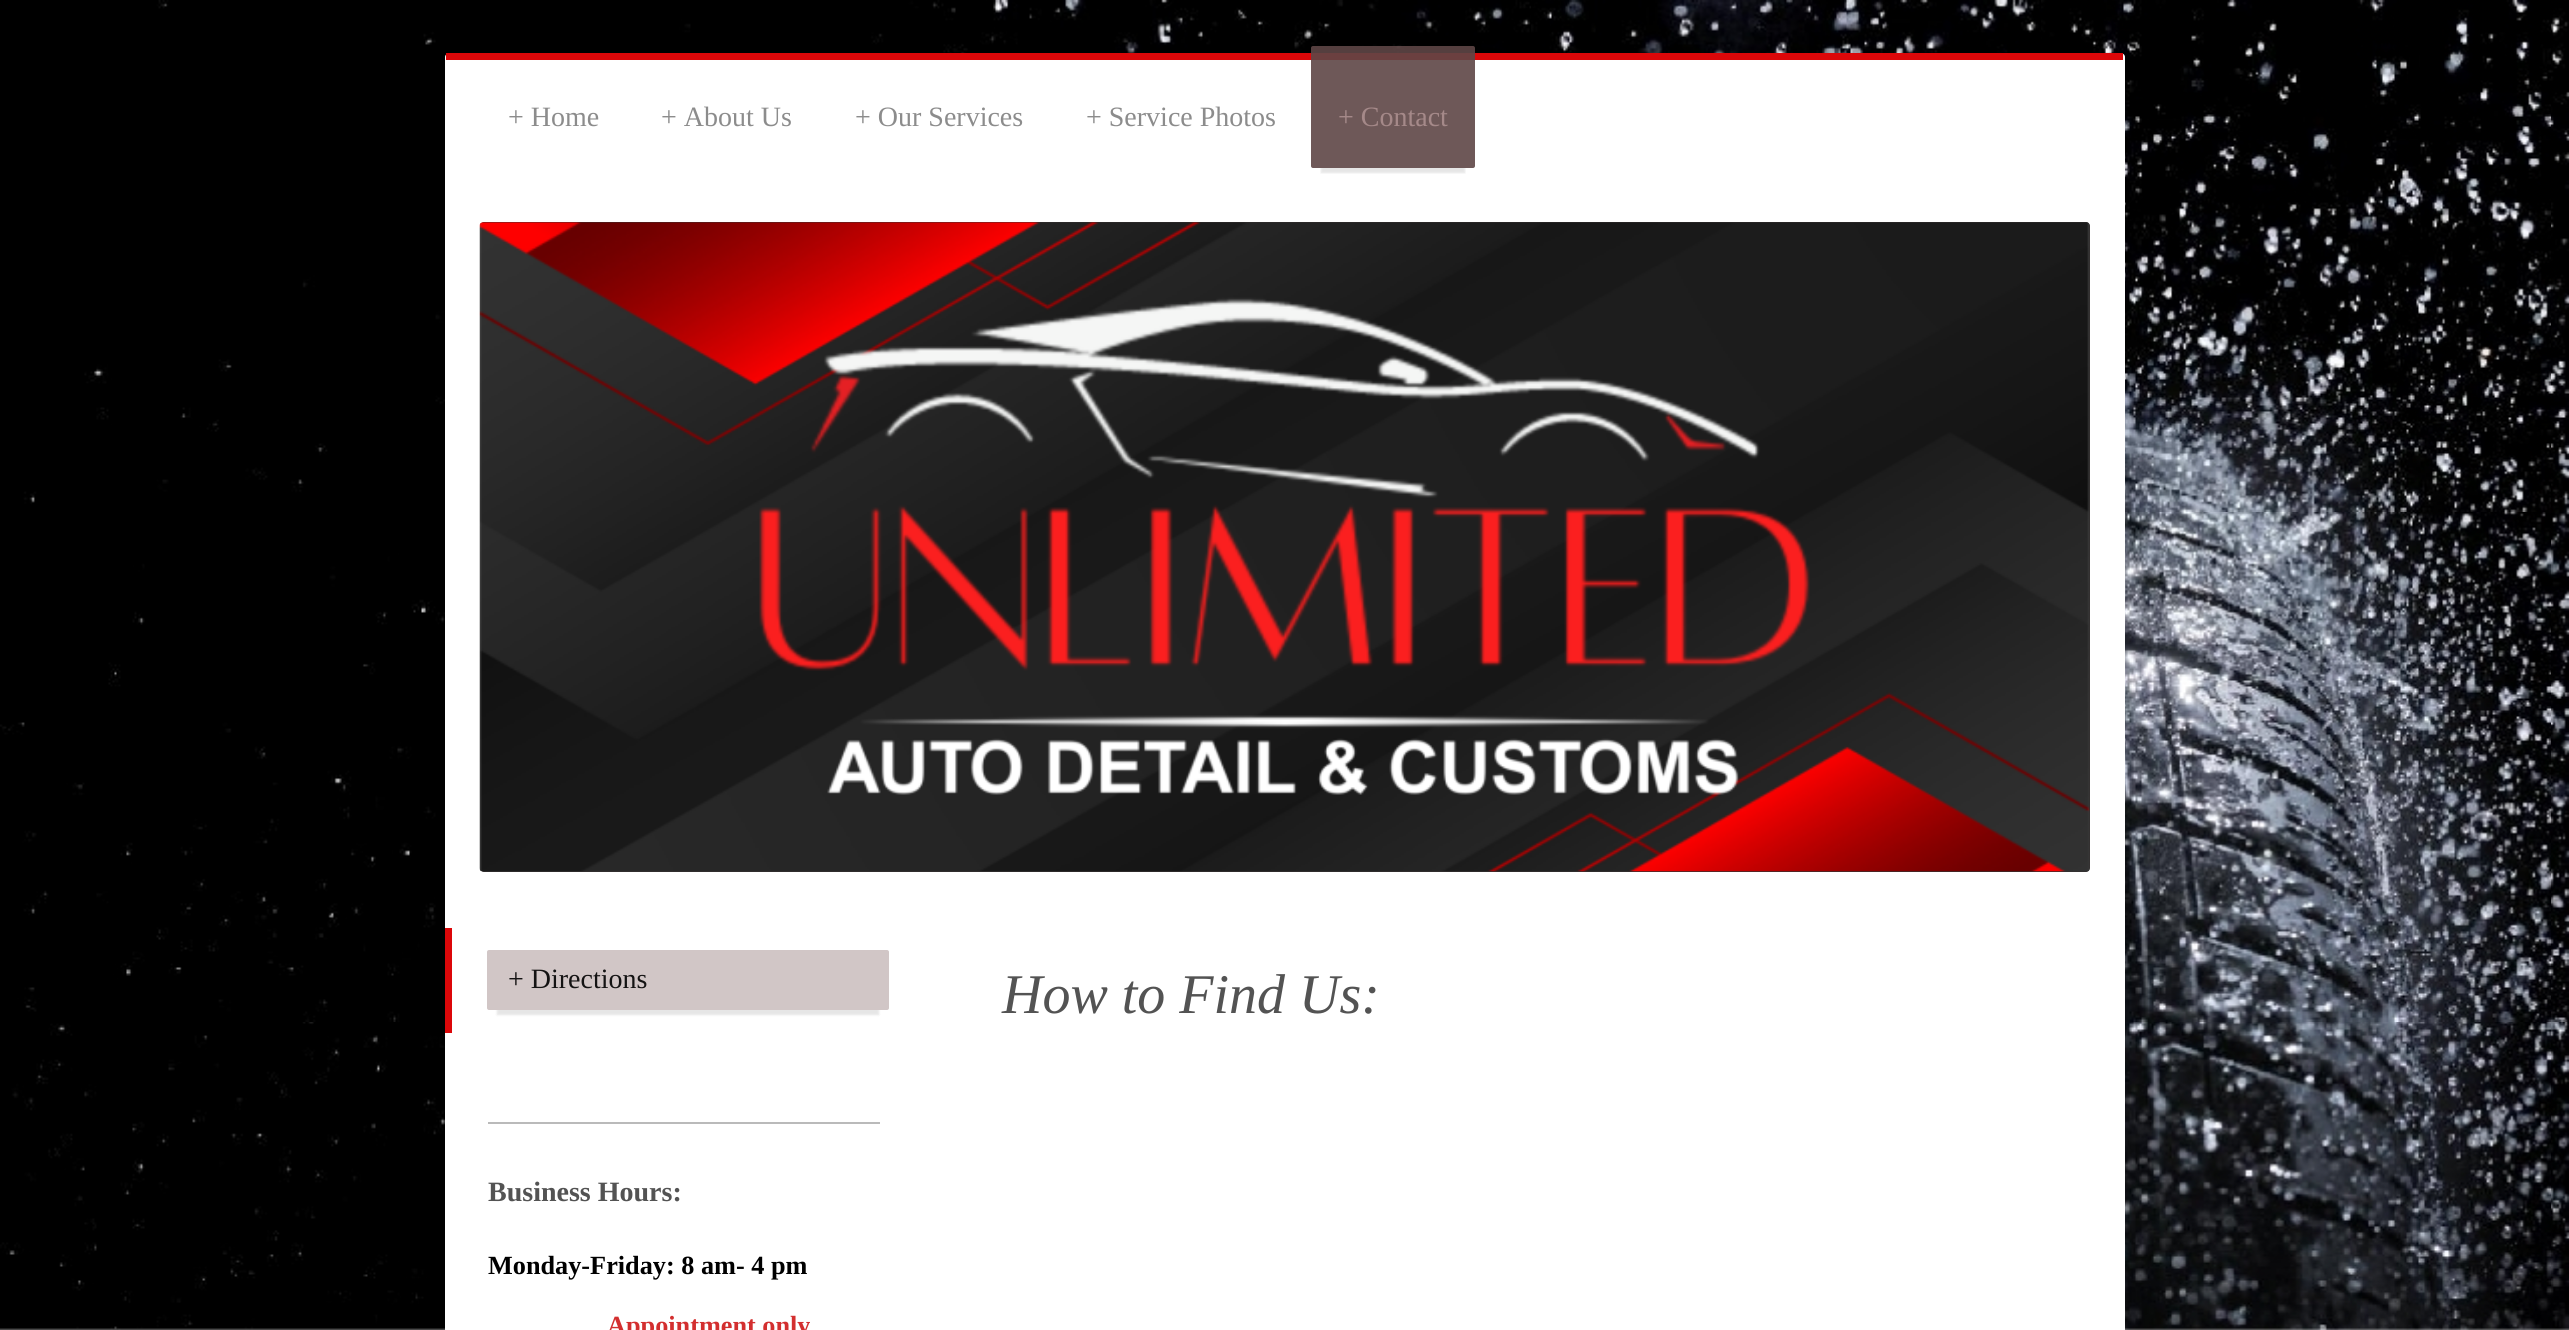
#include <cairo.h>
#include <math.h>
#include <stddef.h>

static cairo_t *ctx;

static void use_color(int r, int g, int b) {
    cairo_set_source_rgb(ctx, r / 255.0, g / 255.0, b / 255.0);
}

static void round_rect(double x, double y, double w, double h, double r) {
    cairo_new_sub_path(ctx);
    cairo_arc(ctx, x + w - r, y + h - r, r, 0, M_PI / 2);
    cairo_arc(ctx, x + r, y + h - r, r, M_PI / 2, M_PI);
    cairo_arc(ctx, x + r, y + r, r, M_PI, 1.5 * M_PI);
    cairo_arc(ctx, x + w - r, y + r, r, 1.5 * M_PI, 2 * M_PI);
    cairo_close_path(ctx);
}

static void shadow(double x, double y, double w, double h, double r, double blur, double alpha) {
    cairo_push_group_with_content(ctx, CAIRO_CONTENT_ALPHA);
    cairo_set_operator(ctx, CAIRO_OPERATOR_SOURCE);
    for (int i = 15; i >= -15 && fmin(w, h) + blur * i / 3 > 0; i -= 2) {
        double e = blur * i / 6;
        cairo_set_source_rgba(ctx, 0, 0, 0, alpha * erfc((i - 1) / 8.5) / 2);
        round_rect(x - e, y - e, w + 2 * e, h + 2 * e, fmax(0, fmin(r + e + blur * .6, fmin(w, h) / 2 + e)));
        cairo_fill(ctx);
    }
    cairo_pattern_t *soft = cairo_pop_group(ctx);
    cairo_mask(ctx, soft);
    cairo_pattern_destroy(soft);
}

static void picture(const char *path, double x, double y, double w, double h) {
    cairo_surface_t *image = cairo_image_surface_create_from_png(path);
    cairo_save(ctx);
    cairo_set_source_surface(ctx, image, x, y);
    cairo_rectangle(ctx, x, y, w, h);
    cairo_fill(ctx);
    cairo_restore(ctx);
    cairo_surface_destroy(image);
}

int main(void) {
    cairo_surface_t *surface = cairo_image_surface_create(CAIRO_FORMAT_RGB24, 2569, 1330);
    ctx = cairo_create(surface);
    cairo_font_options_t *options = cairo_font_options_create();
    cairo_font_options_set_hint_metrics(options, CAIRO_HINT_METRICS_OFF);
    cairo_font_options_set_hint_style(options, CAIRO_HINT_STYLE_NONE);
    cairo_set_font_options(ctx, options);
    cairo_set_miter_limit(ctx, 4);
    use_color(255, 255, 255);
    cairo_paint(ctx);
    picture("img1.png", 0, 0, 2569, 1330);
    use_color(255, 255, 255);
    cairo_new_path(ctx);
    cairo_move_to(ctx, 449, 53);
    cairo_line_to(ctx, 2121, 53);
    cairo_curve_to(ctx, 2123, 53, 2125, 55, 2125, 57);
    cairo_line_to(ctx, 2125, 1330);
    cairo_curve_to(ctx, 2125, 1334, 2122, 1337, 2118, 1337);
    cairo_line_to(ctx, 452, 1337);
    cairo_curve_to(ctx, 448, 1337, 445, 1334, 445, 1330);
    cairo_line_to(ctx, 445, 57);
    cairo_curve_to(ctx, 445, 55, 447, 53, 449, 53);
    cairo_close_path(ctx);
    cairo_fill(ctx);
    use_color(220, 7, 9);
    cairo_rectangle(ctx, 446, 53, 1677, 7);
    cairo_fill(ctx);
    cairo_select_font_face(ctx, "Liberation Serif", CAIRO_FONT_SLANT_NORMAL, CAIRO_FONT_WEIGHT_NORMAL);
    cairo_set_font_size(ctx, 28);
    use_color(140, 140, 140);
    cairo_move_to(ctx, 508, 126);
    cairo_show_text(ctx, "+ Home");
    cairo_move_to(ctx, 661, 126);
    cairo_show_text(ctx, "+ About Us");
    cairo_move_to(ctx, 855, 126);
    cairo_show_text(ctx, "+ Our Services");
    cairo_move_to(ctx, 1086, 126);
    cairo_show_text(ctx, "+ Service Photos");
    cairo_save(ctx);
    cairo_rectangle(ctx, 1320, 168, 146, 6);
    cairo_clip(ctx);
    use_color(0, 0, 0);
    shadow(1321, 72, 144, 101, 0, 1, 0.1);
    cairo_restore(ctx);
    cairo_set_source_rgba(ctx, 0.369, 0.275, 0.275, 0.9);
    round_rect(1311, 46, 164, 122, 2);
    cairo_fill(ctx);
    use_color(165, 137, 137);
    cairo_move_to(ctx, 1338, 126);
    cairo_show_text(ctx, "+ Contact");
    use_color(52, 48, 48);
    round_rect(480, 222, 1610, 650, 4);
    cairo_fill(ctx);
    picture("img2.png", 479, 222, 1611, 650);
    use_color(220, 7, 9);
    cairo_rectangle(ctx, 445, 928, 7, 105);
    cairo_fill(ctx);
    cairo_save(ctx);
    cairo_set_fill_rule(ctx, CAIRO_FILL_RULE_EVEN_ODD);
    cairo_new_path(ctx);
    cairo_move_to(ctx, 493, 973);
    cairo_line_to(ctx, 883, 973);
    cairo_line_to(ctx, 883, 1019);
    cairo_line_to(ctx, 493, 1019);
    cairo_close_path(ctx);
    cairo_move_to(ctx, 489, 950);
    cairo_line_to(ctx, 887, 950);
    cairo_curve_to(ctx, 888, 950, 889, 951, 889, 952);
    cairo_line_to(ctx, 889, 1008);
    cairo_curve_to(ctx, 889, 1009, 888, 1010, 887, 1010);
    cairo_line_to(ctx, 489, 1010);
    cairo_curve_to(ctx, 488, 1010, 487, 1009, 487, 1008);
    cairo_line_to(ctx, 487, 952);
    cairo_curve_to(ctx, 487, 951, 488, 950, 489, 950);
    cairo_close_path(ctx);
    cairo_clip(ctx);
    use_color(0, 0, 0);
    shadow(497, 977, 382, 38, 0, 1, 0.1);
    cairo_restore(ctx);
    cairo_set_source_rgba(ctx, 0.8, 0.753, 0.753, 0.9);
    round_rect(487, 950, 402, 60, 2);
    cairo_fill(ctx);
    use_color(20, 19, 19);
    cairo_move_to(ctx, 508, 988);
    cairo_show_text(ctx, "+ Directions");
    use_color(186, 186, 186);
    cairo_rectangle(ctx, 488, 1122, 392, 2);
    cairo_fill(ctx);
    cairo_select_font_face(ctx, "Liberation Serif", CAIRO_FONT_SLANT_NORMAL, CAIRO_FONT_WEIGHT_BOLD);
    use_color(83, 83, 83);
    cairo_move_to(ctx, 488, 1201);
    cairo_show_text(ctx, "Business Hours:");
    cairo_set_font_size(ctx, 26.25);
    use_color(0, 0, 0);
    cairo_move_to(ctx, 488, 1274);
    cairo_show_text(ctx, "Monday-Friday: 8 am- 4 pm");
    use_color(211, 47, 47);
    cairo_move_to(ctx, 607, 1334);
    cairo_show_text(ctx, "Appointment only");
    cairo_select_font_face(ctx, "Liberation Serif", CAIRO_FONT_SLANT_ITALIC, CAIRO_FONT_WEIGHT_NORMAL);
    cairo_set_font_size(ctx, 56);
    use_color(83, 83, 83);
    cairo_move_to(ctx, 1002, 1013);
    cairo_show_text(ctx, "How to Find Us:");
    cairo_surface_write_to_png(surface, "result.png");
    cairo_font_options_destroy(options);
    cairo_destroy(ctx);
    cairo_surface_destroy(surface);
    return 0;
}
